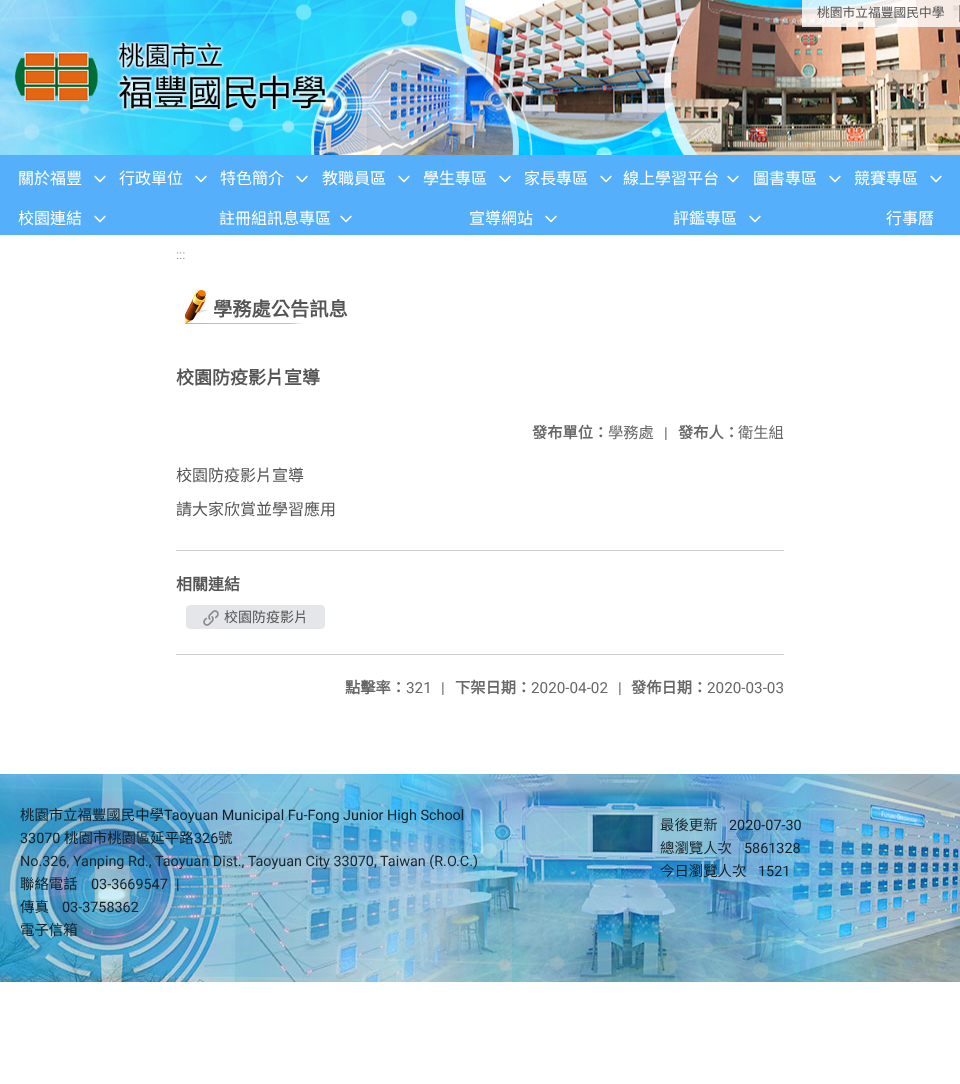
<!DOCTYPE html>
<meta charset="utf-8">
<style>body { margin: 0 } canvas { display: block }</style>
<canvas id="canvas" width="960" height="1084"></canvas>
<script type="module">
  const canvas = document.getElementById("canvas");
  const g = canvas.getContext("2d");
  g.miterLimit = 4;
  g.fontKerning = "normal";
  function drawText(s, x, y, [font, color]) {
    g.font = font;
    g.fillStyle = color;
    g.fillText(s, x, y);
  }
  function fillBox(x, y, w, h, color) {
    g.fillStyle = color;
    g.fillRect(x, y, w, h);
  }
  async function drawPicture(src, x, y, w, h) {
    const img = new Image();
    img.src = src;
    await img.decode();
    g.drawImage(img, x, y, w, h);
  }

  const s1 = ["12.75px Noto Sans CJK TC", "#545454"];
  const s2 = ["16px Noto Sans CJK TC", "#FFFFFF"];
  const s3 = ["12.75px Roboto", "#9E9E9E"];
  const s4 = ["bold 19.25px Noto Sans CJK TC", "#545454"];
  const s5 = ["bold 18px Noto Sans CJK TC", "#545454"];
  const s6 = ["bold 15.25px Noto Sans CJK TC", "#656769"];
  const s7 = ["15.25px Noto Sans CJK TC", "#656769"];
  const s8 = ["15.25px Roboto", "#656769"];
  const s9 = ["16px Noto Sans CJK TC", "#545454"];
  const s10 = ["bold 16px Noto Sans CJK TC", "#545454"];
  const s11 = ["14px Noto Sans CJK TC", "#545454"];
  const s12 = ["14.4px Noto Sans CJK TC", "#102028"];
  const s13 = ["14.4px Roboto", "#102028"];
  const s14 = ["14.4px Noto Sans CJK TC", "#1C252B"];
  const s15 = ["14.4px Roboto", "#1C252B"];
  const s16 = ["14.4px Roboto", "#162229"];

  fillBox(0, 0, 960, 1084, "#FFFFFF");
  await drawPicture("pic1.png", 0, 0, 960, 155);
  await drawPicture("pic2.png", 15, 42, 313, 70);
  fillBox(802, 0, 158, 27, "rgba(255, 255, 255, 0.8)");
  drawText("桃園市立福豐國民中學", 817, 17, s1);
  fillBox(959, 5, 1, 17, "rgba(51, 51, 51, 0.5)");
  fillBox(0, 155, 960, 80, "#56AFFB");
  drawText("關於福豐", 18, 184, s2);
  await drawPicture("pic3.png", 94, 175, 12, 8);
  drawText("行政單位", 119, 184, s2);
  await drawPicture("pic3.png", 195, 175, 12, 8);
  drawText("特色簡介", 220, 184, s2);
  await drawPicture("pic3.png", 296, 175, 12, 8);
  drawText("教職員區", 322, 184, s2);
  await drawPicture("pic3.png", 398, 175, 12, 8);
  drawText("學生專區", 423, 184, s2);
  await drawPicture("pic3.png", 499, 175, 12, 8);
  drawText("家長專區", 524, 184, s2);
  await drawPicture("pic3.png", 600, 175, 12, 8);
  drawText("線上學習平台", 623, 184, s2);
  await drawPicture("pic3.png", 727, 175, 12, 8);
  drawText("圖書專區", 753, 184, s2);
  await drawPicture("pic3.png", 829, 175, 12, 8);
  drawText("競賽專區", 854, 184, s2);
  await drawPicture("pic3.png", 930, 175, 12, 8);
  drawText("校園連結", 18, 224, s2);
  await drawPicture("pic3.png", 94, 215, 12, 8);
  drawText("註冊組訊息專區", 219, 224, s2);
  await drawPicture("pic3.png", 340, 215, 12, 8);
  drawText("宣導網站", 469, 224, s2);
  await drawPicture("pic3.png", 545, 215, 12, 8);
  drawText("評鑑專區", 673, 224, s2);
  await drawPicture("pic3.png", 749, 215, 12, 8);
  drawText("行事曆", 886, 224, s2);
  drawText(":::", 176, 259, s3);
  await drawPicture("pic4.png", 185, 290, 118, 34);
  drawText("學務處公告訊息", 213, 316, s4);
  drawText("校園防疫影片宣導", 176, 384, s5);
  drawText("發布單位：", 532, 438, s6);
  drawText("學務處", 608, 438, s7);
  drawText("|", 664, 438, s8);
  drawText("發布人：", 678, 438, s6);
  drawText("衛生組", 738, 438, s7);
  drawText("校園防疫影片宣導", 176, 481, s9);
  drawText("請大家欣賞並學習應用", 176, 515, s9);
  fillBox(176, 550, 608, 1, "#CCCCCC");
  drawText("相關連結", 176, 590, s10);
  g.fillStyle = "#E5E6E9";
  g.beginPath();
  g.roundRect(186.5, 605.5, 138, 23, 3.5);
  g.fill();
  g.strokeStyle = "#E5E6E9";
  g.stroke();
  await drawPicture("pic5.png", 203, 610, 16, 16);
  drawText("校園防疫影片", 224, 622, s11);
  fillBox(176, 654, 608, 1, "#CCCCCC");
  drawText("點擊率：", 345, 693, s6);
  drawText("321", 406, 693, s8);
  drawText("|", 441, 693, s8);
  drawText("下架日期：", 455, 693, s6);
  drawText("2020-04-02", 531, 693, s8);
  drawText("|", 618, 693, s8);
  drawText("發佈日期：", 631, 693, s6);
  drawText("2020-03-03", 707, 693, s8);
  await drawPicture("pic6.png", 0, 774, 960, 208);
  drawText("桃園市立福豐國民中學", 20, 820, s12);
  drawText("Taoyuan Municipal Fu-Fong Junior High School", 164, 820, s13);
  drawText("33070", 20, 843, s13);
  drawText("桃園市桃園區延平路", 64, 843, s12);
  drawText("326", 194, 843, s13);
  drawText("號", 218, 843, s14);
  drawText("No.326, Yanping Rd., Taoyuan Dist., Taoyuan City 33070, Taiwan (R.O.C.)", 20, 866, s15);
  drawText("聯絡電話", 20, 889, s12);
  drawText("03-3669547", 91, 889, s16);
  drawText("|", 176, 889, s13);
  drawText("傳真", 20, 912, s12);
  drawText("03-3758362", 62, 912, s13);
  drawText("電子信箱", 20, 935, s12);
  drawText("最後更新", 660, 830, s14);
  drawText("2020-07-30", 729, 830, s16);
  drawText("總瀏覽人次", 660, 853, s14);
  drawText("5861328", 744, 853, s13);
  drawText("今日瀏覽人次", 660, 876, s12);
  drawText("1521", 758, 876, s13);
</script>
